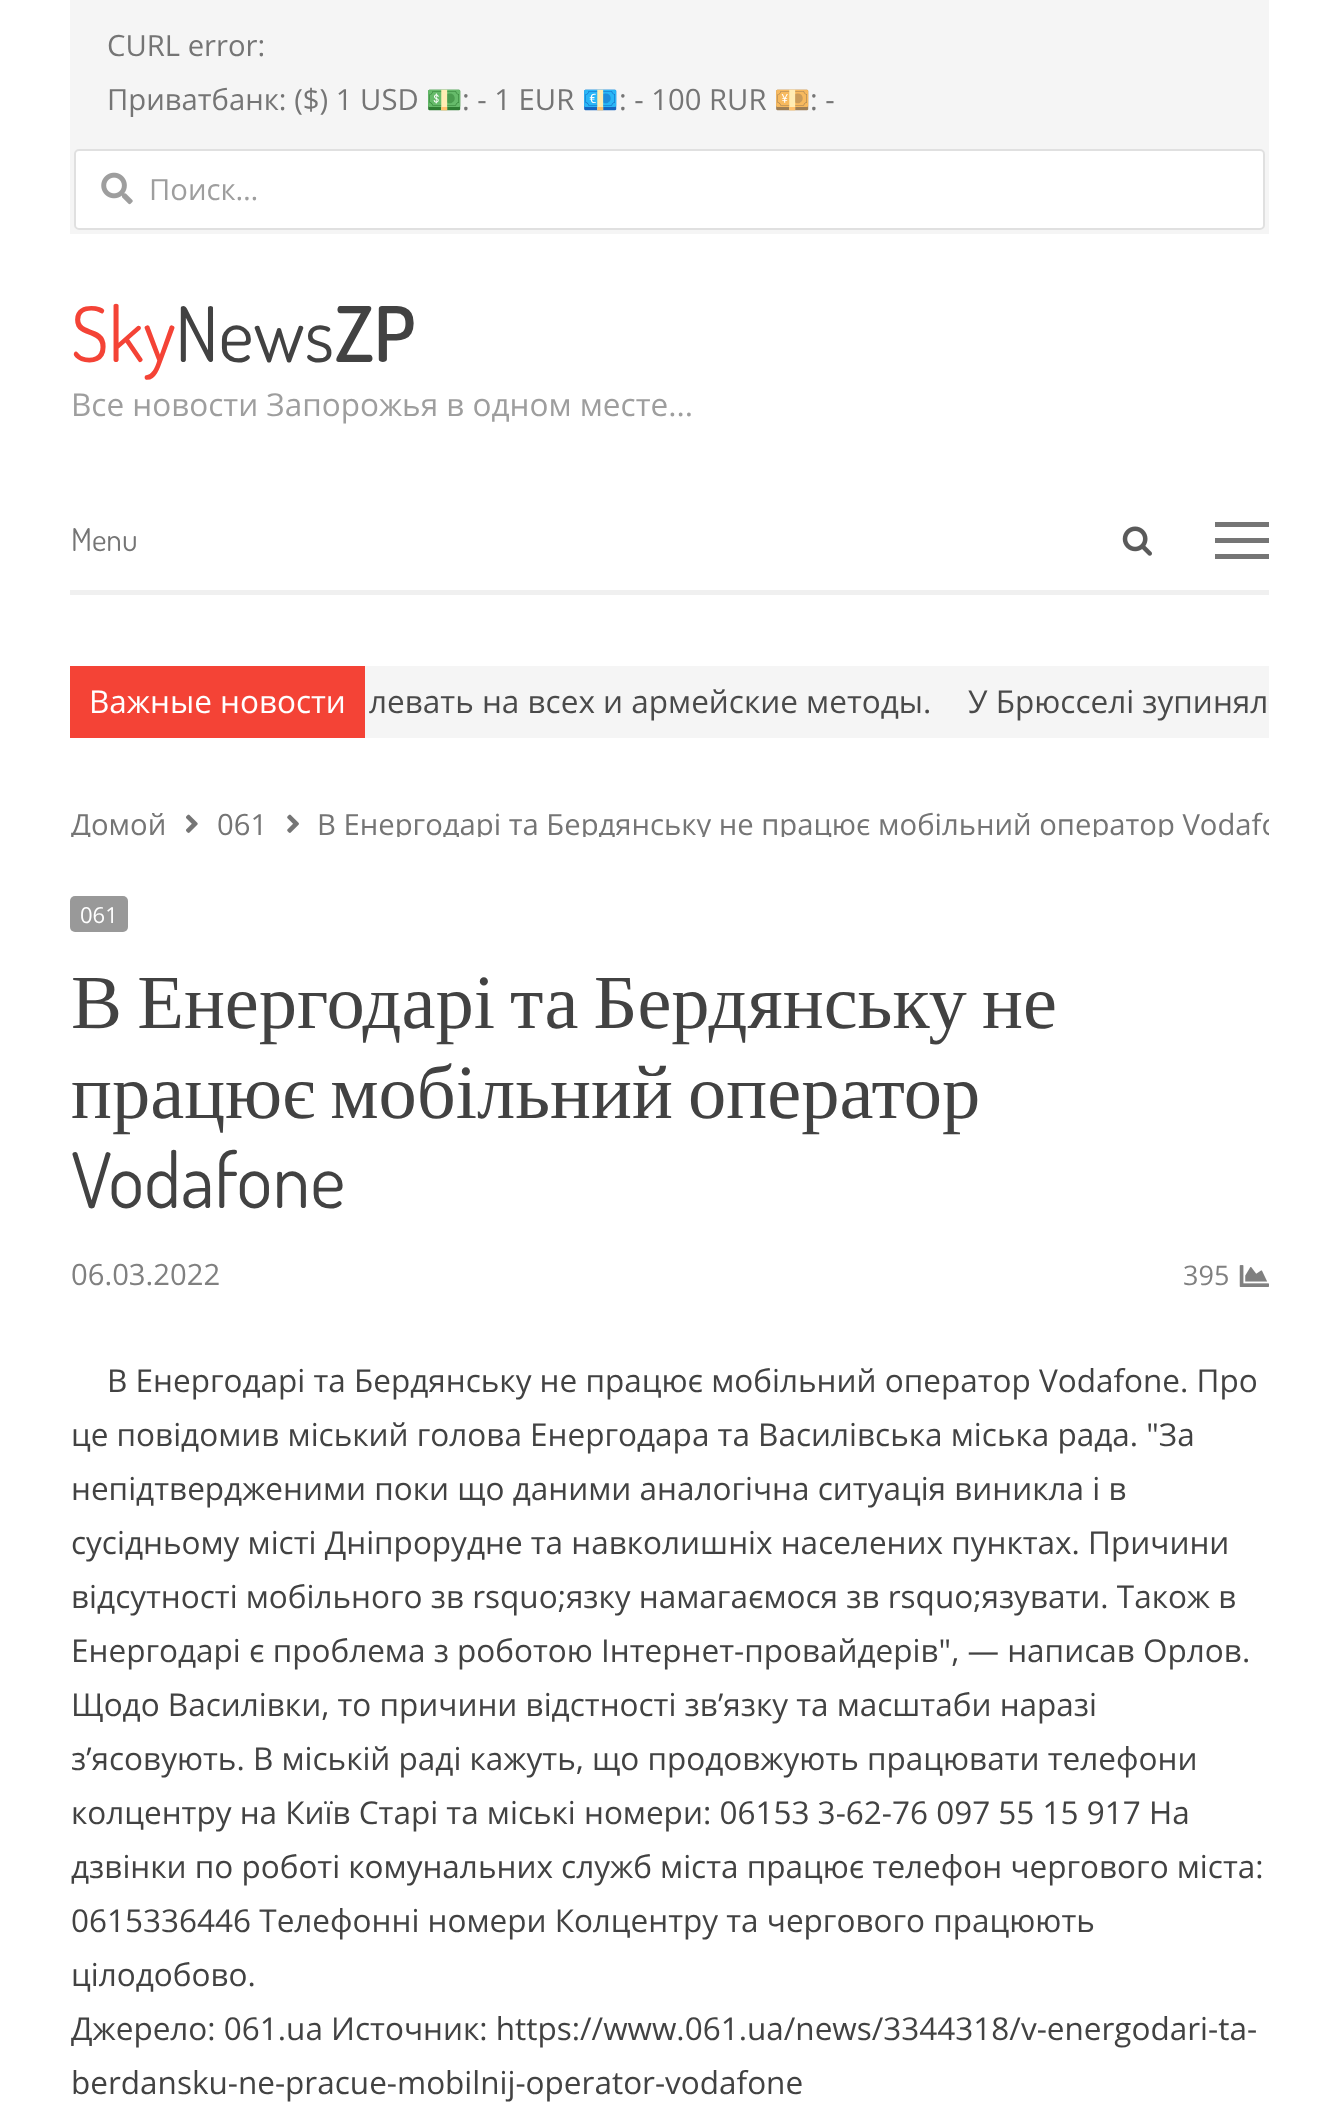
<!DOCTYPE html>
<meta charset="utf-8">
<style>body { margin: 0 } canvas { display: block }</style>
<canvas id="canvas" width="1338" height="2124"></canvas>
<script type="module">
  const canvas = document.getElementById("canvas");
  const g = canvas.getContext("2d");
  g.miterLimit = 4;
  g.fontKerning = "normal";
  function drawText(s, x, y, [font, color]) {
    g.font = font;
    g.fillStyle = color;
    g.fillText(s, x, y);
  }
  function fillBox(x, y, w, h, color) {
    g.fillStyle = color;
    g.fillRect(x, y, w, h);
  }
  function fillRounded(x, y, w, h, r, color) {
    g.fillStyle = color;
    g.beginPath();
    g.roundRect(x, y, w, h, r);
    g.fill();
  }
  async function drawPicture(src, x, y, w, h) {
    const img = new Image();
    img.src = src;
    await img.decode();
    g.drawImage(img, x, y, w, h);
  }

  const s1 = ["29.25px Open Sans", "#757575"];
  const s2 = ["29.25px Noto Color Emoji", "#757575"];
  const s3 = ["29.25px Open Sans", "#9E9E9E"];
  const s4 = ["76.5px Dosis", "#F44336"];
  const s5 = ["76.5px Dosis", "#424242"];
  const s6 = ["600 76.5px Dosis", "#424242"];
  const s7 = ["31.5px Open Sans", "#9E9E9E"];
  const s8 = ["31.5px Dosis", "#757575"];
  const s9 = ["31.5px Open Sans", "#FFFFFF"];
  const s10 = ["31.5px Open Sans", "#4A4A4A"];
  const s11 = ["22px Open Sans", "#FFFFFF"];
  const s12 = ["76.5px Liberation Serif", "#424242"];
  const s13 = ["29.25px Open Sans", "#808080"];
  const s14 = ["27px Open Sans", "#808080"];
  const s15 = ["31.5px Open Sans", "#424242"];

  fillBox(0, 0, 1338, 2124, "#FFFFFF");
  fillBox(70, 0, 1199, 234, "#F5F5F5");
  drawText("CURL error:", 107, 56, s1);
  drawText("Приватбанк: ($) 1 USD", 107, 110, s1);
  drawText("💵", 426, 110, s2);
  drawText(": - 1 EUR", 462, 110, s1);
  drawText("💶", 582, 110, s2);
  drawText(": - 100 RUR", 619, 110, s1);
  drawText("💴", 774, 110, s2);
  drawText(": -", 810, 110, s1);
  fillRounded(74, 149, 1191, 81, 5, "#FFFFFF");
  g.beginPath();
  g.roundRect(75, 150, 1189, 79, 4);
  g.strokeStyle = "rgba(0, 0, 0, 0.12)";
  g.lineWidth = 2;
  g.stroke();
  await drawPicture("pic1.png", 101, 172, 32, 33);
  drawText("Поиск…", 149, 200, s3);
  drawText("Sky", 71, 362, s4);
  drawText("News", 175, 362, s5);
  drawText("ZP", 335, 362, s6);
  drawText("Все новости Запорожья в одном месте...", 71, 416, s7);
  fillBox(70, 590, 1199, 5, "#F0F0F0");
  drawText("Menu", 71, 551, s8);
  fillBox(1215, 522, 54, 5, "#757575");
  fillBox(1215, 538, 54, 5, "#757575");
  fillBox(1215, 554, 54, 5, "#757575");
  await drawPicture("pic2.png", 1122, 526, 30, 30);
  fillBox(70, 666, 295, 72, "#F44336");
  drawText("Важные новости", 89, 713, s9);
  fillBox(365, 666, 904, 72, "#F5F5F5");
  drawText("левать на всех и армейские методы.", 369, 713, s10);
  drawText("У Брюсселі зупинял", 968, 713, s10);
  g.save();
  g.beginPath();
  g.rect(70, 792, 1199, 45);
  g.clip();
  drawText("Домой", 71, 835, s1);
  g.restore();
  await drawPicture("pic3.png", 186, 814, 12, 19);
  drawText("061", 217, 835, s1);
  await drawPicture("pic4.png", 287, 814, 12, 19);
  g.save();
  g.beginPath();
  g.rect(70, 792, 1199, 45);
  g.clip();
  drawText("В Енергодарі та Бердянську не працює мобільний оператор Vodafo", 317, 835, s1);
  g.restore();
  fillRounded(70, 896, 58, 36, 5, "#999999");
  drawText("061", 80, 923, s11);
  g.wordSpacing = "-4px";
  drawText("В Енергодарі та Бердянську не", 71, 1028, s12);
  drawText("працює мобільний оператор", 71, 1118, s12);
  g.wordSpacing = "0px";
  drawText("Vodafone", 71, 1208, s5);
  drawText("06.03.2022", 71, 1285, s13);
  drawText("395", 1183, 1285, s14);
  await drawPicture("pic5.png", 1239, 1265, 30, 22);
  drawText("В Енергодарі та Бердянську не працює мобільний оператор Vodafone. Про", 107, 1392, s15);
  drawText("це повідомив міський голова Енергодара та Василівська міська рада. \"За", 71, 1446, s15);
  drawText("непідтвердженими поки що даними аналогічна ситуація виникла і в", 71, 1500, s15);
  drawText("сусідньому місті Дніпрорудне та навколишніх населених пунктах. Причини", 71, 1554, s15);
  drawText("відсутності мобільного зв rsquo;язку намагаємося зв rsquo;язувати. Також в", 71, 1608, s15);
  drawText("Енергодарі є проблема з роботою Інтернет-провайдерів\", — написав Орлов.", 71, 1662, s15);
  drawText("Щодо Василівки, то причини відстності зв’язку та масштаби наразі", 71, 1716, s15);
  drawText("з’ясовують. В міській раді кажуть, що продовжують працювати телефони", 71, 1770, s15);
  drawText("колцентру на Київ Старі та міські номери: 06153 3-62-76 097 55 15 917 На", 71, 1824, s15);
  drawText("дзвінки по роботі комунальних служб міста працює телефон чергового міста:", 71, 1878, s15);
  drawText("0615336446 Телефонні номери Колцентру та чергового працюють", 71, 1932, s15);
  drawText("цілодобово.", 71, 1986, s15);
  drawText("Джерело: 061.ua Источник: https://www.061.ua/news/3344318/v-energodari-ta-", 71, 2040, s15);
  drawText("berdansku-ne-pracue-mobilnij-operator-vodafone", 71, 2094, s15);
</script>
